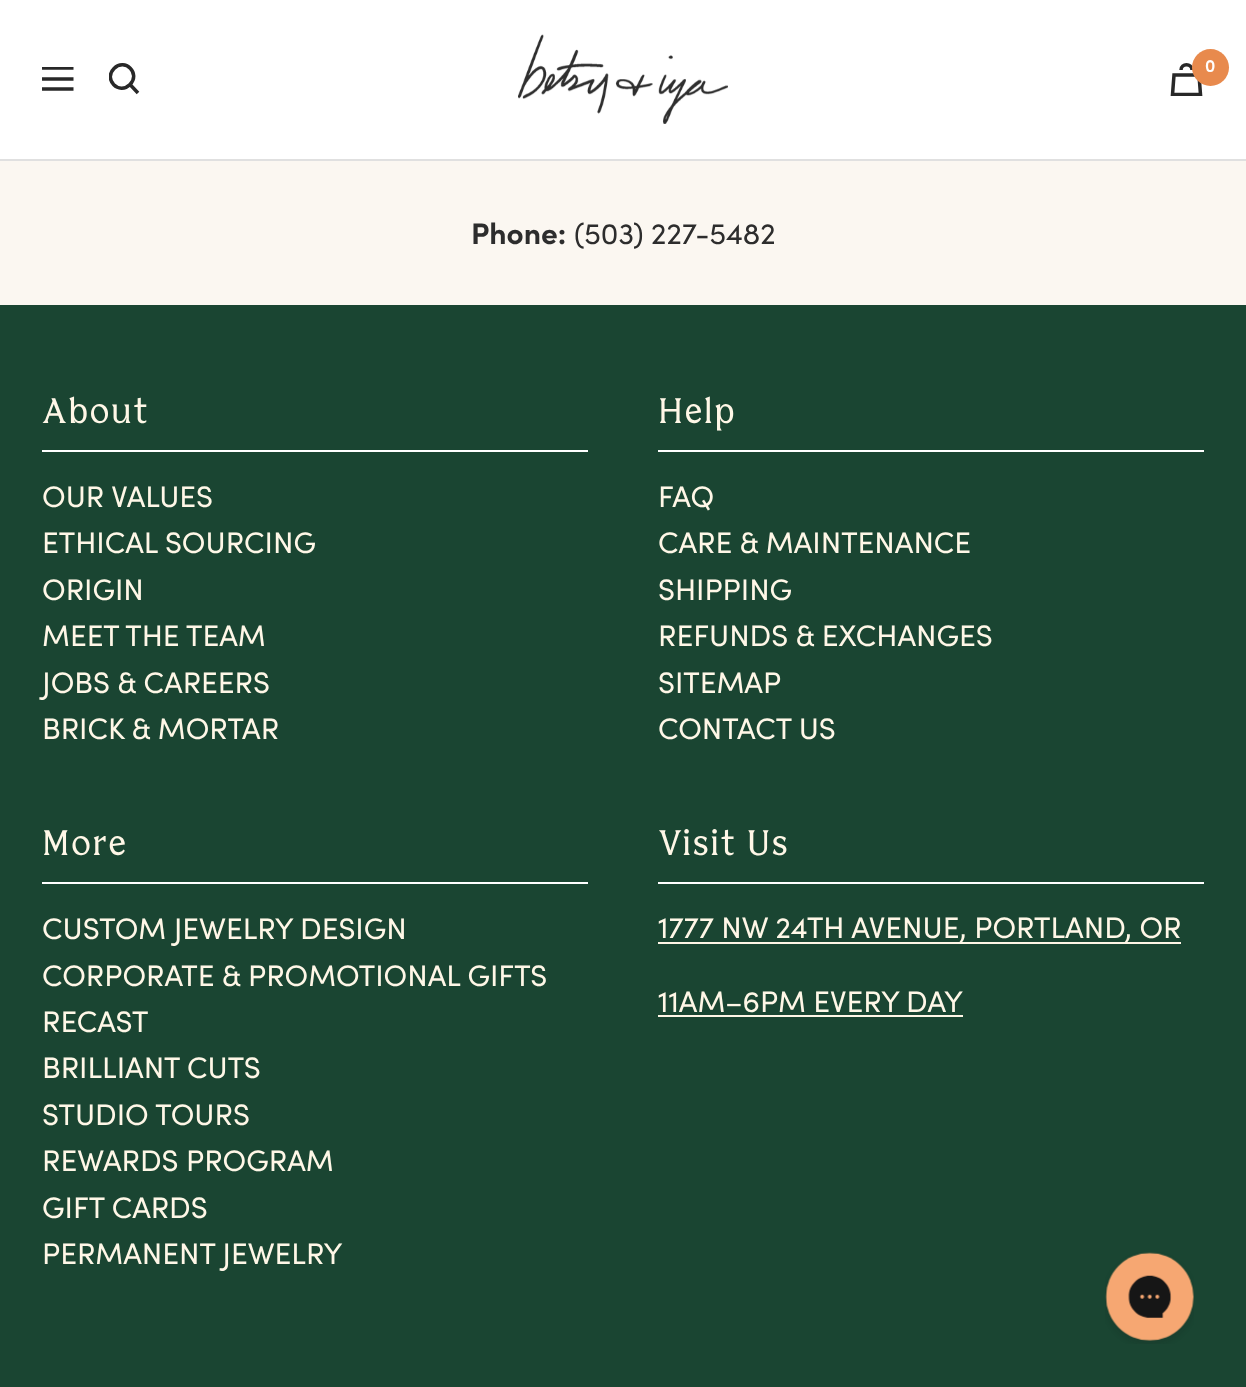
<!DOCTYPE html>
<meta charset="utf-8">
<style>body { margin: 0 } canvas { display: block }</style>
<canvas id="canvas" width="1246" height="1387"></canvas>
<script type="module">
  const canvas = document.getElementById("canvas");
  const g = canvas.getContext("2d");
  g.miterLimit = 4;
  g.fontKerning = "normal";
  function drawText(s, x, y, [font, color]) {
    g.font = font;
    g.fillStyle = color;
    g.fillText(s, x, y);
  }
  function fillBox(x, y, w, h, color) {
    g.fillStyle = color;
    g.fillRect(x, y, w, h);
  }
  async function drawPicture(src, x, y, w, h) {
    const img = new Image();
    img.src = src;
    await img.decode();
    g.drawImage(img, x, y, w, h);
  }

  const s1 = ["600 16px Poppins", "#FFFFFF"];
  const s2 = ["bold 29.75px Sofia", "#2D2D2D"];
  const s3 = ["29.75px Sofia", "#2D2D2D"];
  const s4 = ["35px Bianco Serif", "#FFF7E7"];
  const s5 = ["29.75px Sofia", "#FFF7E7"];

  fillBox(0, 0, 1246, 1387, "#FBF7F1");
  fillBox(0, 159, 1246, 2, "#E0E0E0");
  fillBox(0, 0, 1246, 159, "#FFFFFF");
  g.save();
  g.beginPath();
  g.rect(42, 67, 32, 24);
  g.clip();
  g.beginPath();
  g.moveTo(42, 68);
  g.lineTo(73.5, 68);
  g.moveTo(42, 89);
  g.lineTo(73.5, 89);
  g.closePath();
  g.moveTo(42, 79);
  g.lineTo(73.5, 79);
  g.closePath();
  g.strokeStyle = "#282828";
  g.lineWidth = 3.5;
  g.stroke();
  g.restore();
  g.save();
  g.beginPath();
  g.rect(109, 63, 31, 32);
  g.clip();
  g.beginPath();
  g.moveTo(130, 84.5);
  g.bezierCurveTo(141, 73.5, 125, 57.5, 114, 68.5);
  g.bezierCurveTo(103, 79.5, 119, 95.5, 130, 84.5);
  g.closePath();
  g.moveTo(130, 84.5);
  g.lineTo(138, 93);
  g.strokeStyle = "#282828";
  g.lineWidth = 3.5;
  g.stroke();
  g.restore();
  await drawPicture("pic1.png", 518, 34, 210, 90);
  g.save();
  g.beginPath();
  g.rect(1169, 63, 35, 33);
  g.clip();
  g.beginPath();
  g.moveTo(1174, 75);
  g.lineTo(1199, 75);
  g.lineTo(1200.5, 94.5);
  g.lineTo(1172.5, 94.5);
  g.closePath();
  g.strokeStyle = "#282828";
  g.lineWidth = 3.5;
  g.stroke();
  g.restore();
  g.beginPath();
  g.moveTo(1192, 70);
  g.bezierCurveTo(1192, 63, 1181, 63, 1181, 70);
  g.strokeStyle = "#282828";
  g.lineWidth = 3.5;
  g.stroke();
  g.fillStyle = "#E88A4D";
  g.beginPath();
  g.arc(1210.5, 67.5, 18.5, 0, Math.PI * 2);
  g.fill();
  drawText("0", 1205, 72, s1);
  drawText("Phone:", 471, 244, s2);
  drawText("(503) 227-5482", 574, 244, s3);
  fillBox(0, 305, 1246, 1082, "#1A4532");
  fillBox(42, 450, 546, 2, "#FFFFFF");
  g.letterSpacing = "1.75px";
  drawText("About", 42, 423, s4);
  g.letterSpacing = "0px";
  drawText("OUR VALUES", 42, 507, s5);
  drawText("ETHICAL SOURCING", 42, 553, s5);
  drawText("ORIGIN", 42, 600, s5);
  drawText("MEET THE TEAM", 42, 646, s5);
  drawText("JOBS & CAREERS", 42, 693, s5);
  drawText("BRICK & MORTAR", 42, 739, s5);
  fillBox(658, 450, 546, 2, "#FFFFFF");
  g.letterSpacing = "1.75px";
  drawText("Help", 658, 423, s4);
  g.letterSpacing = "0px";
  drawText("FAQ", 658, 507, s5);
  drawText("CARE & MAINTENANCE", 658, 553, s5);
  drawText("SHIPPING", 658, 600, s5);
  drawText("REFUNDS & EXCHANGES", 658, 646, s5);
  drawText("SITEMAP", 658, 693, s5);
  drawText("CONTACT US", 658, 739, s5);
  fillBox(42, 882, 546, 2, "#FFFFFF");
  g.letterSpacing = "1.75px";
  drawText("More", 42, 855, s4);
  g.letterSpacing = "0px";
  drawText("CUSTOM JEWELRY DESIGN", 42, 939, s5);
  drawText("CORPORATE & PROMOTIONAL GIFTS", 42, 986, s5);
  drawText("RECAST", 42, 1032, s5);
  drawText("BRILLIANT CUTS", 42, 1078, s5);
  drawText("STUDIO TOURS", 42, 1125, s5);
  drawText("REWARDS PROGRAM", 42, 1171, s5);
  drawText("GIFT CARDS", 42, 1218, s5);
  drawText("PERMANENT JEWELRY", 42, 1264, s5);
  fillBox(658, 882, 546, 2, "#FFFFFF");
  g.letterSpacing = "1.75px";
  drawText("Visit Us", 658, 855, s4);
  fillBox(658, 942, 523, 2, "#FFF7E7");
  g.letterSpacing = "0px";
  drawText("1777 NW 24TH AVENUE, PORTLAND, OR", 658, 938, s5);
  drawText("11AM–6PM EVERY DAY", 658, 1012, s5);
  fillBox(658, 1015, 305, 2, "#FFF7E7");
  await drawPicture("pic2.png", 1105, 1252, 89, 92);
</script>
